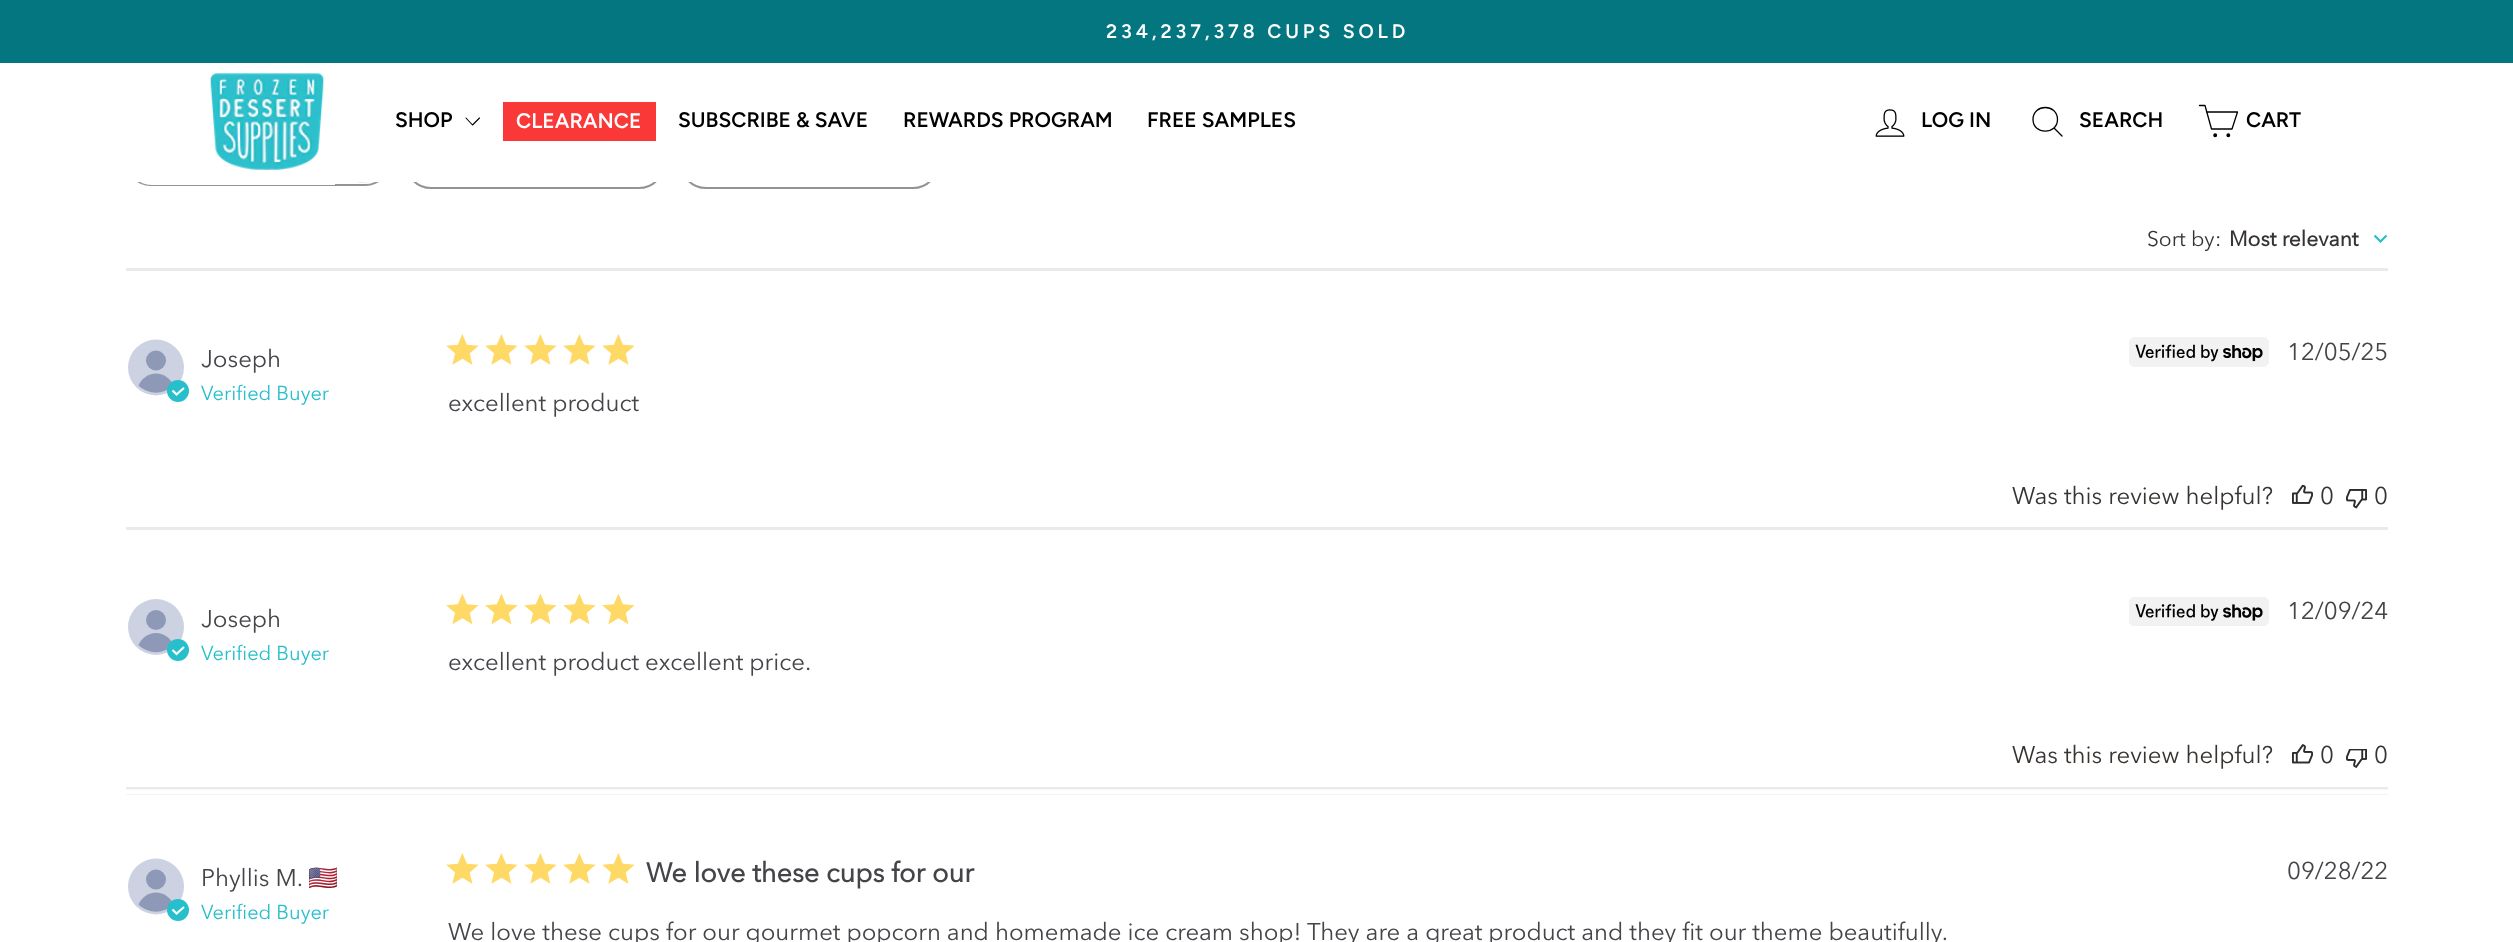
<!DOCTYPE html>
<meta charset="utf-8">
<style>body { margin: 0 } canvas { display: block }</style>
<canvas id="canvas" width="2513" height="942"></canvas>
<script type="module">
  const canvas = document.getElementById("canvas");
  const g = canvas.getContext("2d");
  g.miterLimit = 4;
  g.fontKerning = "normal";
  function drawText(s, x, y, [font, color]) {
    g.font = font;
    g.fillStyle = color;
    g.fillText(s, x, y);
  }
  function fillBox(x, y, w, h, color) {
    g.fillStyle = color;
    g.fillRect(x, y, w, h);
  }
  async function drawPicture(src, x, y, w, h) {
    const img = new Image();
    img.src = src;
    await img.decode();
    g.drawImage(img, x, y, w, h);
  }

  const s1 = ["600 19.5px Figtree", "#FFFFFF"];
  const s2 = ["600 21px Figtree", "#000000"];
  const s3 = ["600 21px Figtree", "#FFFFFF"];
  const s4 = ["21px Avenir Next", "#373330"];
  const s5 = ["bold 21px Avenir Next", "#373330"];
  const s6 = ["24px Avenir Next", "#454449"];
  const s7 = ["20px Avenir Next", "#26BFCB"];
  const s8 = ["24px Avenir Next", "#373330"];
  const s9 = ["24px Noto Color Emoji", "#454449"];
  const s10 = ["bold 27px Avenir Next", "#454449"];

  fillBox(0, 0, 2513, 942, "#FFFFFF");
  fillBox(0, 0, 2513, 63, "#047680");
  g.letterSpacing = "3.9px";
  drawText("234,237,378 CUPS SOLD", 1106, 38, s1);
  g.beginPath();
  g.roundRect(127, 138, 262, 47, 23.5);
  g.strokeStyle = "#949494";
  g.lineWidth = 2;
  g.stroke();
  g.beginPath();
  g.roundRect(128, 138, 207, 47, [23.5, 0, 0, 23.5]);
  g.fill();
  g.fillStyle = "#EAEAEA";
  g.beginPath();
  g.arc(362.5, 161.5, 21.5, 0, Math.PI * 2);
  g.fill();
  g.beginPath();
  g.roundRect(406, 138, 258, 50, 25);
  g.stroke();
  g.beginPath();
  g.roundRect(681, 138, 257, 50, 25);
  g.stroke();
  fillBox(126, 137, 813, 45, "#FFFFFF");
  await drawPicture("pic1.png", 210, 73, 114, 98);
  g.letterSpacing = "0px";
  drawText("SHOP", 395, 127, s2);
  g.beginPath();
  g.moveTo(466, 118);
  g.lineTo(472.5, 125);
  g.lineTo(479.5, 118);
  g.strokeStyle = "#000000";
  g.lineWidth = 1.1;
  g.lineCap = "round";
  g.lineJoin = "round";
  g.stroke();
  fillBox(503, 102, 153, 39, "#FA3838");
  drawText("CLEARANCE", 516, 128, s3);
  drawText("SUBSCRIBE & SAVE", 678, 127, s2);
  drawText("REWARDS PROGRAM", 903, 127, s2);
  drawText("FREE SAMPLES", 1147, 127, s2);
  await drawPicture("pic2.png", 1875, 109, 30, 28);
  drawText("LOG IN", 1921, 127, s2);
  g.beginPath();
  g.moveTo(2057.5, 119.5);
  g.bezierCurveTo(2057.5, 135, 2033, 135, 2033, 119.5);
  g.bezierCurveTo(2033, 103.5, 2057.5, 103.5, 2057.5, 119.5);
  g.closePath();
  g.moveTo(2062, 136);
  g.lineTo(2054, 128);
  g.lineWidth = 1.3;
  g.stroke();
  drawText("SEARCH", 2079, 127, s2);
  g.beginPath();
  g.moveTo(2206.5, 112);
  g.lineTo(2237.5, 112);
  g.lineTo(2232, 129);
  g.lineTo(2211.5, 129);
  g.lineTo(2205, 105.5);
  g.lineTo(2199.5, 105.5);
  g.stroke();
  g.beginPath();
  g.arc(2215.2, 135.3, 1.3, 0, Math.PI * 2);
  g.fill();
  g.stroke();
  g.beginPath();
  g.arc(2228.3, 135.3, 1.3, 0, Math.PI * 2);
  g.fill();
  g.stroke();
  drawText("CART", 2246, 127, s2);
  drawText("Sort by", 2147, 246, s4);
  drawText(":", 2215, 246, s4);
  drawText("Most relevant", 2229, 246, s5);
  g.beginPath();
  g.moveTo(2374.5, 235.5);
  g.lineTo(2380.5, 241.5);
  g.lineTo(2386.5, 235.5);
  g.strokeStyle = "#26BFCB";
  g.lineWidth = 2.2;
  g.lineCap = "butt";
  g.lineJoin = "miter";
  g.stroke();
  fillBox(126, 268, 2262, 3, "#EAEAEA");
  g.fillStyle = "#CCD2E1";
  g.beginPath();
  g.arc(156, 367.5, 28, 0, Math.PI * 2);
  g.fill();
  g.fillStyle = "#8D99B6";
  g.beginPath();
  g.arc(156, 360.5, 10, 0, Math.PI * 2);
  g.fill();
  g.beginPath();
  g.moveTo(156, 373.5);
  g.bezierCurveTo(164, 373.5, 170.5, 378.5, 173.5, 385.5);
  g.bezierCurveTo(164, 395, 148, 395, 138.5, 385.5);
  g.bezierCurveTo(141.5, 378.5, 148, 373.5, 156, 373.5);
  g.closePath();
  g.fill();
  g.fillStyle = "#26BFCB";
  g.beginPath();
  g.arc(178, 391, 11, 0, Math.PI * 2);
  g.fill();
  g.beginPath();
  g.moveTo(172.5, 390.5);
  g.lineTo(176.5, 394.5);
  g.lineTo(184, 388);
  g.strokeStyle = "#FFFFFF";
  g.stroke();
  drawText("Joseph", 201, 367, s6);
  drawText("Verified Buyer", 201, 400, s7);
  await drawPicture("pic3.png", 446, 334, 33, 31);
  await drawPicture("pic3.png", 485, 334, 33, 31);
  await drawPicture("pic3.png", 524, 334, 33, 31);
  await drawPicture("pic3.png", 563, 334, 33, 31);
  await drawPicture("pic3.png", 602, 334, 33, 31);
  drawText("excellent product", 448, 411, s6);
  await drawPicture("pic4.png", 2129, 337, 140, 30);
  drawText("12/05/25", 2287, 360, s6);
  drawText("Was this review helpful?", 2012, 504, s8);
  await drawPicture("pic5.png", 2292, 485, 21, 19);
  drawText("0", 2320, 504, s8);
  await drawPicture("pic6.png", 2346, 489, 21, 20);
  drawText("0", 2374, 504, s8);
  fillBox(126, 527, 2262, 3, "#EAEAEA");
  g.fillStyle = "#CCD2E1";
  g.beginPath();
  g.arc(156, 627, 28, 0, Math.PI * 2);
  g.fill();
  g.fillStyle = "#8D99B6";
  g.beginPath();
  g.arc(156, 620, 10, 0, Math.PI * 2);
  g.fill();
  g.beginPath();
  g.moveTo(156, 633);
  g.bezierCurveTo(164, 633, 170.5, 638, 173.5, 645);
  g.bezierCurveTo(164, 654.5, 148, 654.5, 138.5, 645);
  g.bezierCurveTo(141.5, 638, 148, 633, 156, 633);
  g.closePath();
  g.fill();
  g.fillStyle = "#26BFCB";
  g.beginPath();
  g.arc(178, 650, 11, 0, Math.PI * 2);
  g.fill();
  g.beginPath();
  g.moveTo(172.5, 650);
  g.lineTo(176.5, 654);
  g.lineTo(184, 647);
  g.stroke();
  drawText("Joseph", 201, 627, s6);
  drawText("Verified Buyer", 201, 660, s7);
  await drawPicture("pic7.png", 446, 593, 33, 32);
  await drawPicture("pic7.png", 485, 593, 33, 32);
  await drawPicture("pic7.png", 524, 593, 33, 32);
  await drawPicture("pic7.png", 563, 593, 33, 32);
  await drawPicture("pic7.png", 602, 593, 33, 32);
  drawText("excellent product excellent price.", 448, 670, s6);
  await drawPicture("pic8.png", 2129, 597, 140, 29);
  drawText("12/09/24", 2287, 619, s6);
  drawText("Was this review helpful?", 2012, 763, s8);
  await drawPicture("pic9.png", 2292, 744, 21, 20);
  drawText("0", 2320, 763, s8);
  await drawPicture("pic10.png", 2346, 749, 21, 19);
  drawText("0", 2374, 763, s8);
  await drawPicture("pic11.png", 126, 787, 2262, 8);
  g.fillStyle = "#CCD2E1";
  g.beginPath();
  g.arc(156, 886.5, 28, 0, Math.PI * 2);
  g.fill();
  g.fillStyle = "#8D99B6";
  g.beginPath();
  g.arc(156, 879.5, 10, 0, Math.PI * 2);
  g.fill();
  g.beginPath();
  g.moveTo(156, 892.5);
  g.bezierCurveTo(164, 892.5, 170.5, 897.5, 173.5, 904.5);
  g.bezierCurveTo(164, 914, 148, 914, 138.5, 904.5);
  g.bezierCurveTo(141.5, 897.5, 148, 892.5, 156, 892.5);
  g.closePath();
  g.fill();
  g.fillStyle = "#26BFCB";
  g.beginPath();
  g.arc(178, 910, 11, 0, Math.PI * 2);
  g.fill();
  g.beginPath();
  g.moveTo(172.5, 909.5);
  g.lineTo(176.5, 913.5);
  g.lineTo(184, 907);
  g.stroke();
  drawText("Phyllis M.", 201, 886, s6);
  drawText("🇺🇸", 308, 886, s9);
  drawText("Verified Buyer", 201, 919, s7);
  await drawPicture("pic3.png", 446, 853, 33, 31);
  await drawPicture("pic3.png", 485, 853, 33, 31);
  await drawPicture("pic3.png", 524, 853, 33, 31);
  await drawPicture("pic3.png", 563, 853, 33, 31);
  await drawPicture("pic3.png", 602, 853, 33, 31);
  drawText("We love these cups for our", 646, 882, s10);
  drawText("We love these cups for our gourmet popcorn and homemade ice cream shop! They are a great product and they fit our theme beautifully.", 448, 940, s6);
  drawText("09/28/22", 2287, 879, s6);
</script>
